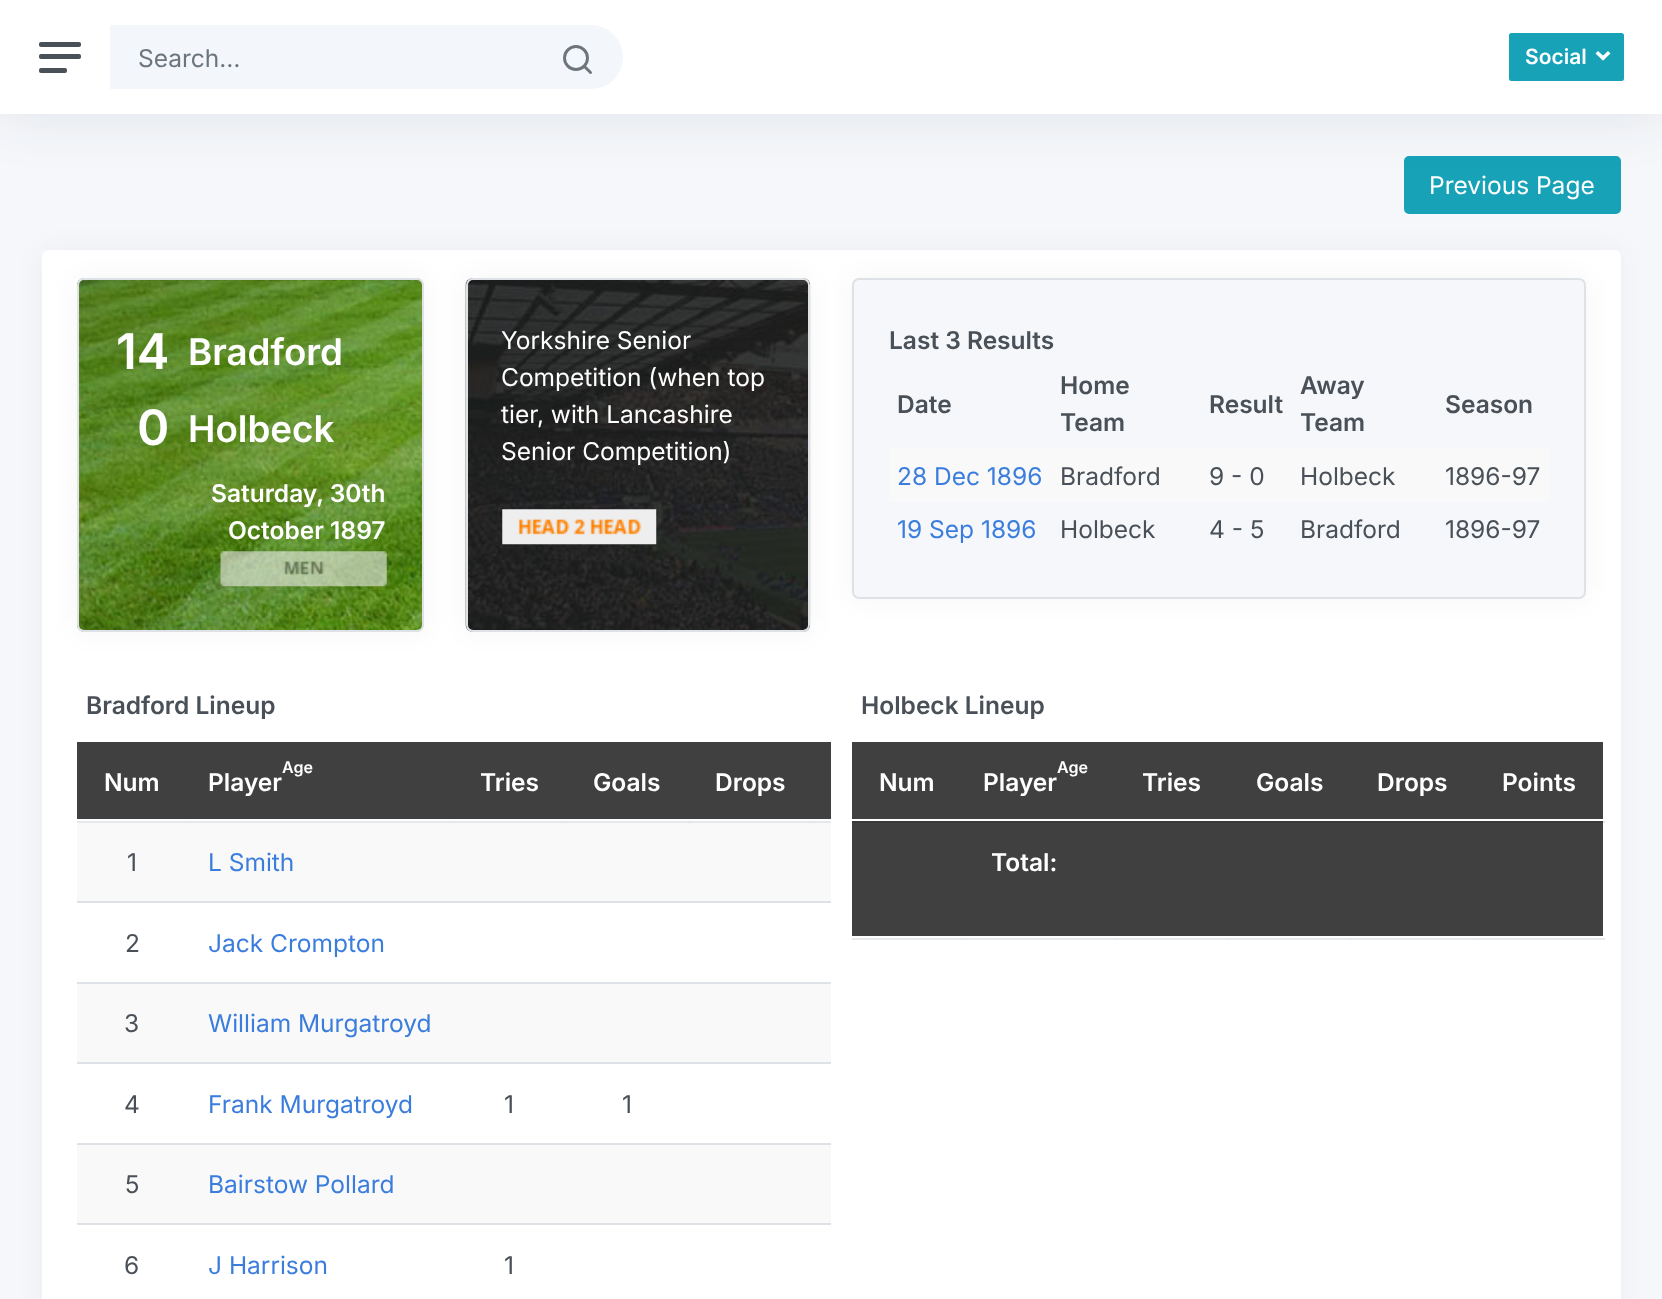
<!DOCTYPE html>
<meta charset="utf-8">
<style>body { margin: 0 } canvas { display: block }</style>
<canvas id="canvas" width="1662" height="1299"></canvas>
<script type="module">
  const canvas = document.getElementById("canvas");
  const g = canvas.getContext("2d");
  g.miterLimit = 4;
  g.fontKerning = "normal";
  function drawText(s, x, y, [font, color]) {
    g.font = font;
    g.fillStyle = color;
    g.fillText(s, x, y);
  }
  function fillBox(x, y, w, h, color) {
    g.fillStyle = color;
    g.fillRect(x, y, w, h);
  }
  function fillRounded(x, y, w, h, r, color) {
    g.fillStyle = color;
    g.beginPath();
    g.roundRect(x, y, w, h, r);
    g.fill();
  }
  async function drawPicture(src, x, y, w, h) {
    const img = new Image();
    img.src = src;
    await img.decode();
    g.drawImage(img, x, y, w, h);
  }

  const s1 = ["24.5px Inter", "#6C757D"];
  const s2 = ["600 21px Inter", "#FFFFFF"];
  const s3 = ["24.5px Inter", "#FFFFFF"];
  const s4 = ["600 49px Inter", "#FFFFFF"];
  const s5 = ["600 36.75px Inter", "#FFFFFF"];
  const s6 = ["600 24.5px Inter", "#FFFFFF"];
  const s7 = ["600 24.5px Inter", "#495057"];
  const s8 = ["24.5px Inter", "#3B7DDD"];
  const s9 = ["24.5px Inter", "#495057"];
  const s10 = ["600 16px Inter", "#FFFFFF"];

  fillBox(0, 0, 1662, 1299, "#F5F7FB");
  g.fillStyle = "#17A2B8";
  g.beginPath();
  g.roundRect(1405, 157, 215, 56, 4);
  g.fill();
  g.strokeStyle = "#17A2B8";
  g.lineWidth = 2;
  g.stroke();
  g.fillStyle = "rgba(33, 37, 41, 0.1)";
  g.filter = "blur(28px)";
  g.beginPath();
  g.rect(0, 0, 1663, 114);
  g.fill();
  g.filter = "none";
  fillBox(0, 0, 1662, 114, "#FFFFFF");
  fillRounded(39, 54, 42, 5, 2, "#495057");
  fillRounded(39, 42, 42, 5, 2, "#495057");
  fillRounded(39, 68, 28, 5, 2, "#495057");
  fillBox(110, 25, 422, 64, "#F3F6FA");
  drawText("Search…", 138, 67, s1);
  g.fillStyle = "#F3F6FA";
  g.beginPath();
  g.roundRect(532, 25, 91, 64, [0, 32, 32, 0]);
  g.fill();
  g.beginPath();
  g.arc(576, 58, 11.5, 0, Math.PI * 2);
  g.strokeStyle = "#6C757D";
  g.lineWidth = 2.9;
  g.stroke();
  g.beginPath();
  g.moveTo(590.5, 72.5);
  g.lineTo(584.5, 66.5);
  g.lineCap = "round";
  g.lineJoin = "round";
  g.stroke();
  g.fillStyle = "#17A2B8";
  g.beginPath();
  g.roundRect(1510, 34, 113, 46, 1.5);
  g.fill();
  g.strokeStyle = "#17A2B8";
  g.lineWidth = 2;
  g.lineJoin = "miter";
  g.stroke();
  drawText("Social", 1525, 64, s2);
  g.beginPath();
  g.moveTo(1608, 51);
  g.lineTo(1610.5, 53.5);
  g.lineTo(1603, 60.5);
  g.lineTo(1600.5, 58);
  g.closePath();
  g.fill();
  g.beginPath();
  g.moveTo(1598, 51);
  g.lineTo(1605.5, 58);
  g.lineTo(1603, 60.5);
  g.lineTo(1595.5, 53.5);
  g.closePath();
  g.fill();
  drawText("Previous Page", 1429, 194, s3);
  g.fillStyle = "rgba(33, 37, 41, 0.05)";
  g.filter = "blur(12px)";
  g.beginPath();
  g.roundRect(42, 250, 1579, 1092, 7);
  g.fill();
  g.filter = "none";
  g.fillStyle = "#FFFFFF";
  g.beginPath();
  g.moveTo(49, 250);
  g.lineTo(1614, 250);
  g.bezierCurveTo(1618, 250, 1621, 253, 1621, 257);
  g.lineTo(1621, 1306);
  g.lineTo(42, 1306);
  g.lineTo(42, 257);
  g.bezierCurveTo(42, 253, 45, 250, 49, 250);
  g.closePath();
  g.fill();
  fillBox(852, 823, 751, 113, "#404040");
  fillBox(852, 821, 751, 2, "#3A3A3B");
  fillBox(852, 938, 753, 2, "#E6E9EC");
  fillBox(961, 938, 2, 2, "#E0E4E8");
  fillBox(1115, 938, 2, 2, "#E0E4E8");
  fillBox(1227, 938, 2, 2, "#E0E4E8");
  fillBox(1349, 938, 2, 2, "#E0E4E8");
  g.fillStyle = "rgba(33, 37, 41, 0.05)";
  g.filter = "blur(12px)";
  g.beginPath();
  g.roundRect(77, 278, 347, 354, 7);
  g.fill();
  g.filter = "none";
  await drawPicture("pic1.png", 77, 278, 347, 354);
  g.beginPath();
  g.roundRect(78, 279, 345, 352, 6);
  g.strokeStyle = "#DEE2E6";
  g.stroke();
  drawText("14", 116, 369, s4);
  drawText("Bradford", 188, 365, s5);
  drawText("0", 137, 445, s4);
  drawText("Holbeck", 188, 442, s5);
  drawText("Saturday, 30th", 211, 502, s6);
  drawText("October 1897", 228, 539, s6);
  await drawPicture("pic2.png", 220, 551, 167, 36);
  g.fillStyle = "rgba(33, 37, 41, 0.05)";
  g.filter = "blur(12px)";
  g.beginPath();
  g.roundRect(466, 278, 344, 354, 7);
  g.fill();
  g.filter = "none";
  await drawPicture("pic3.png", 465, 278, 346, 354);
  g.beginPath();
  g.roundRect(467, 279, 342, 352, 6);
  g.stroke();
  drawText("Yorkshire Senior", 501, 349, s3);
  drawText("Competition (when top", 501, 386, s3);
  drawText("tier, with Lancashire", 501, 423, s3);
  drawText("Senior Competition)", 501, 460, s3);
  await drawPicture("pic4.png", 502, 509, 155, 36);
  g.fillStyle = "rgba(33, 37, 41, 0.05)";
  g.filter = "blur(12px)";
  g.beginPath();
  g.roundRect(852, 278, 734, 321, 7);
  g.fill();
  g.filter = "none";
  g.fillStyle = "#F5F7FB";
  g.beginPath();
  g.roundRect(853, 279, 732, 319, 6);
  g.fill();
  g.stroke();
  drawText("Last 3 Results", 889, 349, s7);
  drawText("Date", 897, 413, s7);
  drawText("Home", 1060, 394, s7);
  drawText("Team", 1060, 431, s7);
  drawText("Result", 1209, 413, s7);
  drawText("Away", 1300, 394, s7);
  drawText("Team", 1300, 431, s7);
  drawText("Season", 1445, 413, s7);
  fillBox(889, 448, 660, 54, "#F9F9F9");
  drawText("28 Dec 1896", 897, 485, s8);
  drawText("Bradford", 1060, 485, s9);
  drawText("9 - 0", 1209, 485, s9);
  drawText("Holbeck", 1300, 485, s9);
  drawText("1896-97", 1445, 485, s9);
  drawText("19 Sep 1896", 897, 538, s8);
  drawText("Holbeck", 1060, 538, s9);
  drawText("4 - 5", 1209, 538, s9);
  drawText("Bradford", 1300, 538, s9);
  drawText("1896-97", 1445, 538, s9);
  drawText("Bradford Lineup", 86, 714, s7);
  fillBox(77, 742, 754, 77, "#404040");
  drawText("Num", 104, 791, s6);
  drawText("Age", 282, 773, s10);
  drawText("Player", 208, 791, s6);
  drawText("Tries", 480, 791, s6);
  drawText("Goals", 593, 791, s6);
  drawText("Drops", 715, 791, s6);
  fillBox(77, 821, 754, 2, "#E5E8EB");
  fillBox(812, 821, 2, 2, "#E0E4E7");
  fillBox(77, 823, 754, 78, "#F9F9F9");
  fillBox(186, 821, 1, 2, "#E0E4E7");
  fillBox(452, 821, 1, 2, "#E0E4E7");
  fillBox(565, 821, 2, 2, "#E0E4E7");
  fillBox(688, 821, 2, 2, "#E0E4E7");
  drawText("1", 127, 871, s9);
  drawText("L Smith", 208, 871, s8);
  fillBox(77, 901, 754, 2, "#DEE2E6");
  drawText("2", 125, 952, s9);
  drawText("Jack Crompton", 208, 952, s8);
  fillBox(77, 982, 754, 2, "#DEE2E6");
  fillBox(77, 984, 754, 78, "#F9F9F9");
  drawText("3", 124, 1032, s9);
  drawText("William Murgatroyd", 208, 1032, s8);
  fillBox(77, 1062, 754, 2, "#DEE2E6");
  drawText("4", 124, 1113, s9);
  drawText("Frank Murgatroyd", 208, 1113, s8);
  drawText("1", 504, 1113, s9);
  drawText("1", 622, 1113, s9);
  fillBox(77, 1143, 754, 2, "#DEE2E6");
  fillBox(77, 1145, 754, 78, "#F9F9F9");
  drawText("5", 125, 1193, s9);
  drawText("Bairstow Pollard", 208, 1193, s8);
  fillBox(77, 1223, 754, 2, "#DEE2E6");
  drawText("6", 124, 1274, s9);
  drawText("J Harrison", 208, 1274, s8);
  drawText("1", 504, 1274, s9);
  drawText("Holbeck Lineup", 861, 714, s7);
  fillBox(852, 742, 751, 77, "#404040");
  drawText("Num", 879, 791, s6);
  drawText("Age", 1057, 773, s10);
  drawText("Player", 983, 791, s6);
  drawText("Tries", 1142, 791, s6);
  drawText("Goals", 1256, 791, s6);
  drawText("Drops", 1377, 791, s6);
  fillBox(1603, 821, 2, 2, "#E6E9EC");
  drawText("Points", 1502, 791, s6);
  drawText("Total:", 991, 871, s6);
  fillBox(1474, 938, 1, 2, "#E0E4E8");
</script>
